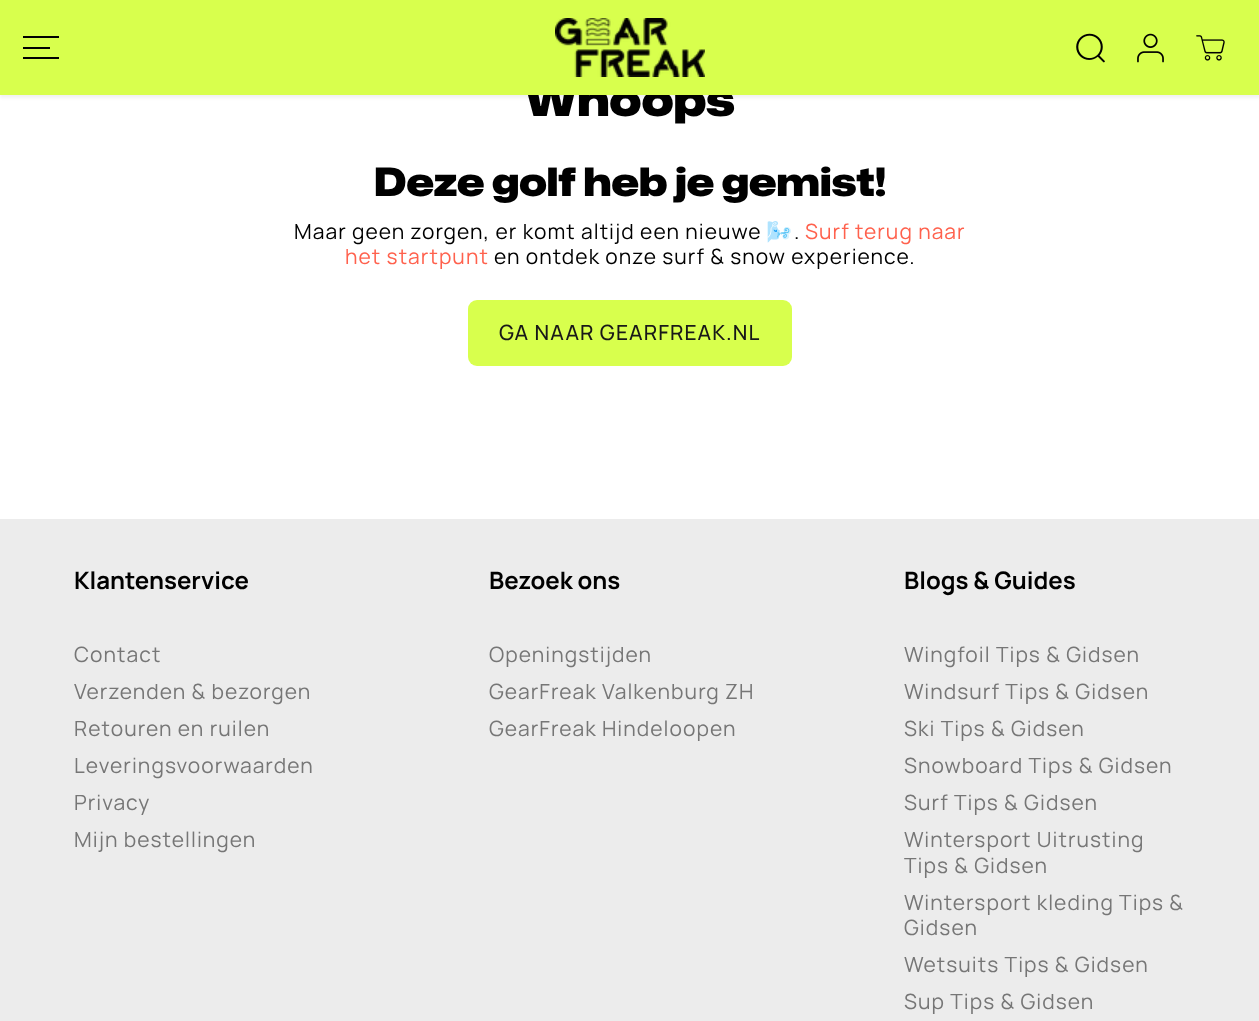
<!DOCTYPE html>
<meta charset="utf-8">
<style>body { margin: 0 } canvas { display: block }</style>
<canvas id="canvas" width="1259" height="1021"></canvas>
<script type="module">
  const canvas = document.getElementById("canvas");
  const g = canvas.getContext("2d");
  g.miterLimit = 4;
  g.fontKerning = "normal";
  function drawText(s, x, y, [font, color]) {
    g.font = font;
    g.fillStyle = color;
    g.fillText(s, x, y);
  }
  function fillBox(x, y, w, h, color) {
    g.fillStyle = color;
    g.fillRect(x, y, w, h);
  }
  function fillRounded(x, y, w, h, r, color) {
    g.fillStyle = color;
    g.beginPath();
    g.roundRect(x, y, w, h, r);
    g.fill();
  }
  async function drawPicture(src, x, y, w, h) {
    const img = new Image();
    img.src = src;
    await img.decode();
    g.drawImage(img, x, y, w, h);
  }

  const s1 = ["900 45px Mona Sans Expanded", "#000000"];
  const s2 = ["900 39px Mona Sans Expanded", "#000000"];
  const s3 = ["21px Manrope", "#000000"];
  const s4 = ["21px Noto Color Emoji", "#000000"];
  const s5 = ["21px Manrope", "#FF614D"];
  const s6 = ["500 21px Manrope", "#181818"];
  const s7 = ["bold 24px Manrope", "#000000"];
  const s8 = ["21px Manrope", "#767676"];

  fillBox(0, 0, 1259, 1021, "#ECECEC");
  fillBox(0, 95, 1259, 424, "#FFFFFF");
  drawText("Whoops", 525, 116, s1);
  fillBox(0, 0, 1259, 95, "#D8FF4D");
  g.save();
  g.beginPath();
  g.moveTo(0, 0);
  g.lineTo(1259, 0);
  g.lineTo(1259, 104);
  g.lineTo(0, 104);
  g.closePath();
  g.moveTo(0, 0);
  g.lineTo(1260, 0);
  g.lineTo(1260, 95);
  g.lineTo(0, 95);
  g.closePath();
  g.clip("evenodd");
  g.fillStyle = "rgba(0, 0, 0, 0.05)";
  g.filter = "blur(1.5px)";
  g.beginPath();
  g.rect(0, 3, 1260, 95);
  g.fill();
  g.filter = "none";
  g.restore();
  fillBox(23, 47, 27, 2, "#000000");
  fillBox(23, 36, 36, 2, "#000000");
  fillBox(23, 57, 36, 2, "#000000");
  await drawPicture("pic1.png", 555, 18, 150, 59);
  await drawPicture("pic2.png", 1076, 33, 29, 30);
  await drawPicture("pic3.png", 1137, 33, 27, 30);
  await drawPicture("pic4.png", 1196, 35, 29, 26);
  drawText("Deze golf heb je gemist!", 374, 196, s2);
  g.letterSpacing = "1.05px";
  drawText("Maar geen zorgen, er komt altijd een nieuwe", 294, 239, s3);
  drawText("🌬️", 766, 239, s4);
  drawText(".", 794, 239, s3);
  drawText("Surf terug naar", 805, 239, s5);
  drawText("het startpunt", 345, 264, s5);
  drawText("en ontdek onze surf & snow experience.", 494, 264, s3);
  fillRounded(468, 300, 324, 66, 9, "#D8FF4D");
  drawText("GA NAAR GEARFREAK.NL", 499, 340, s6);
  g.letterSpacing = "0px";
  drawText("Klantenservice", 74, 589, s7);
  g.letterSpacing = "1.05px";
  drawText("Contact", 74, 662, s8);
  drawText("Verzenden & bezorgen", 74, 699, s8);
  drawText("Retouren en ruilen", 74, 736, s8);
  drawText("Leveringsvoorwaarden", 74, 773, s8);
  drawText("Privacy", 74, 810, s8);
  drawText("Mijn bestellingen", 74, 847, s8);
  g.letterSpacing = "0px";
  drawText("Bezoek ons", 489, 589, s7);
  g.letterSpacing = "1.05px";
  drawText("Openingstijden", 489, 662, s8);
  drawText("GearFreak Valkenburg ZH", 489, 699, s8);
  drawText("GearFreak Hindeloopen", 489, 736, s8);
  g.letterSpacing = "0px";
  drawText("Blogs & Guides", 904, 589, s7);
  g.letterSpacing = "1.05px";
  drawText("Wingfoil Tips & Gidsen", 904, 662, s8);
  drawText("Windsurf Tips & Gidsen", 904, 699, s8);
  drawText("Ski Tips & Gidsen", 904, 736, s8);
  drawText("Snowboard Tips & Gidsen", 904, 773, s8);
  drawText("Surf Tips & Gidsen", 904, 810, s8);
  drawText("Wintersport Uitrusting", 904, 847, s8);
  drawText("Tips & Gidsen", 904, 873, s8);
  drawText("Wintersport kleding Tips &", 904, 910, s8);
  drawText("Gidsen", 904, 935, s8);
  drawText("Wetsuits Tips & Gidsen", 904, 972, s8);
  drawText("Sup Tips & Gidsen", 904, 1009, s8);
</script>
